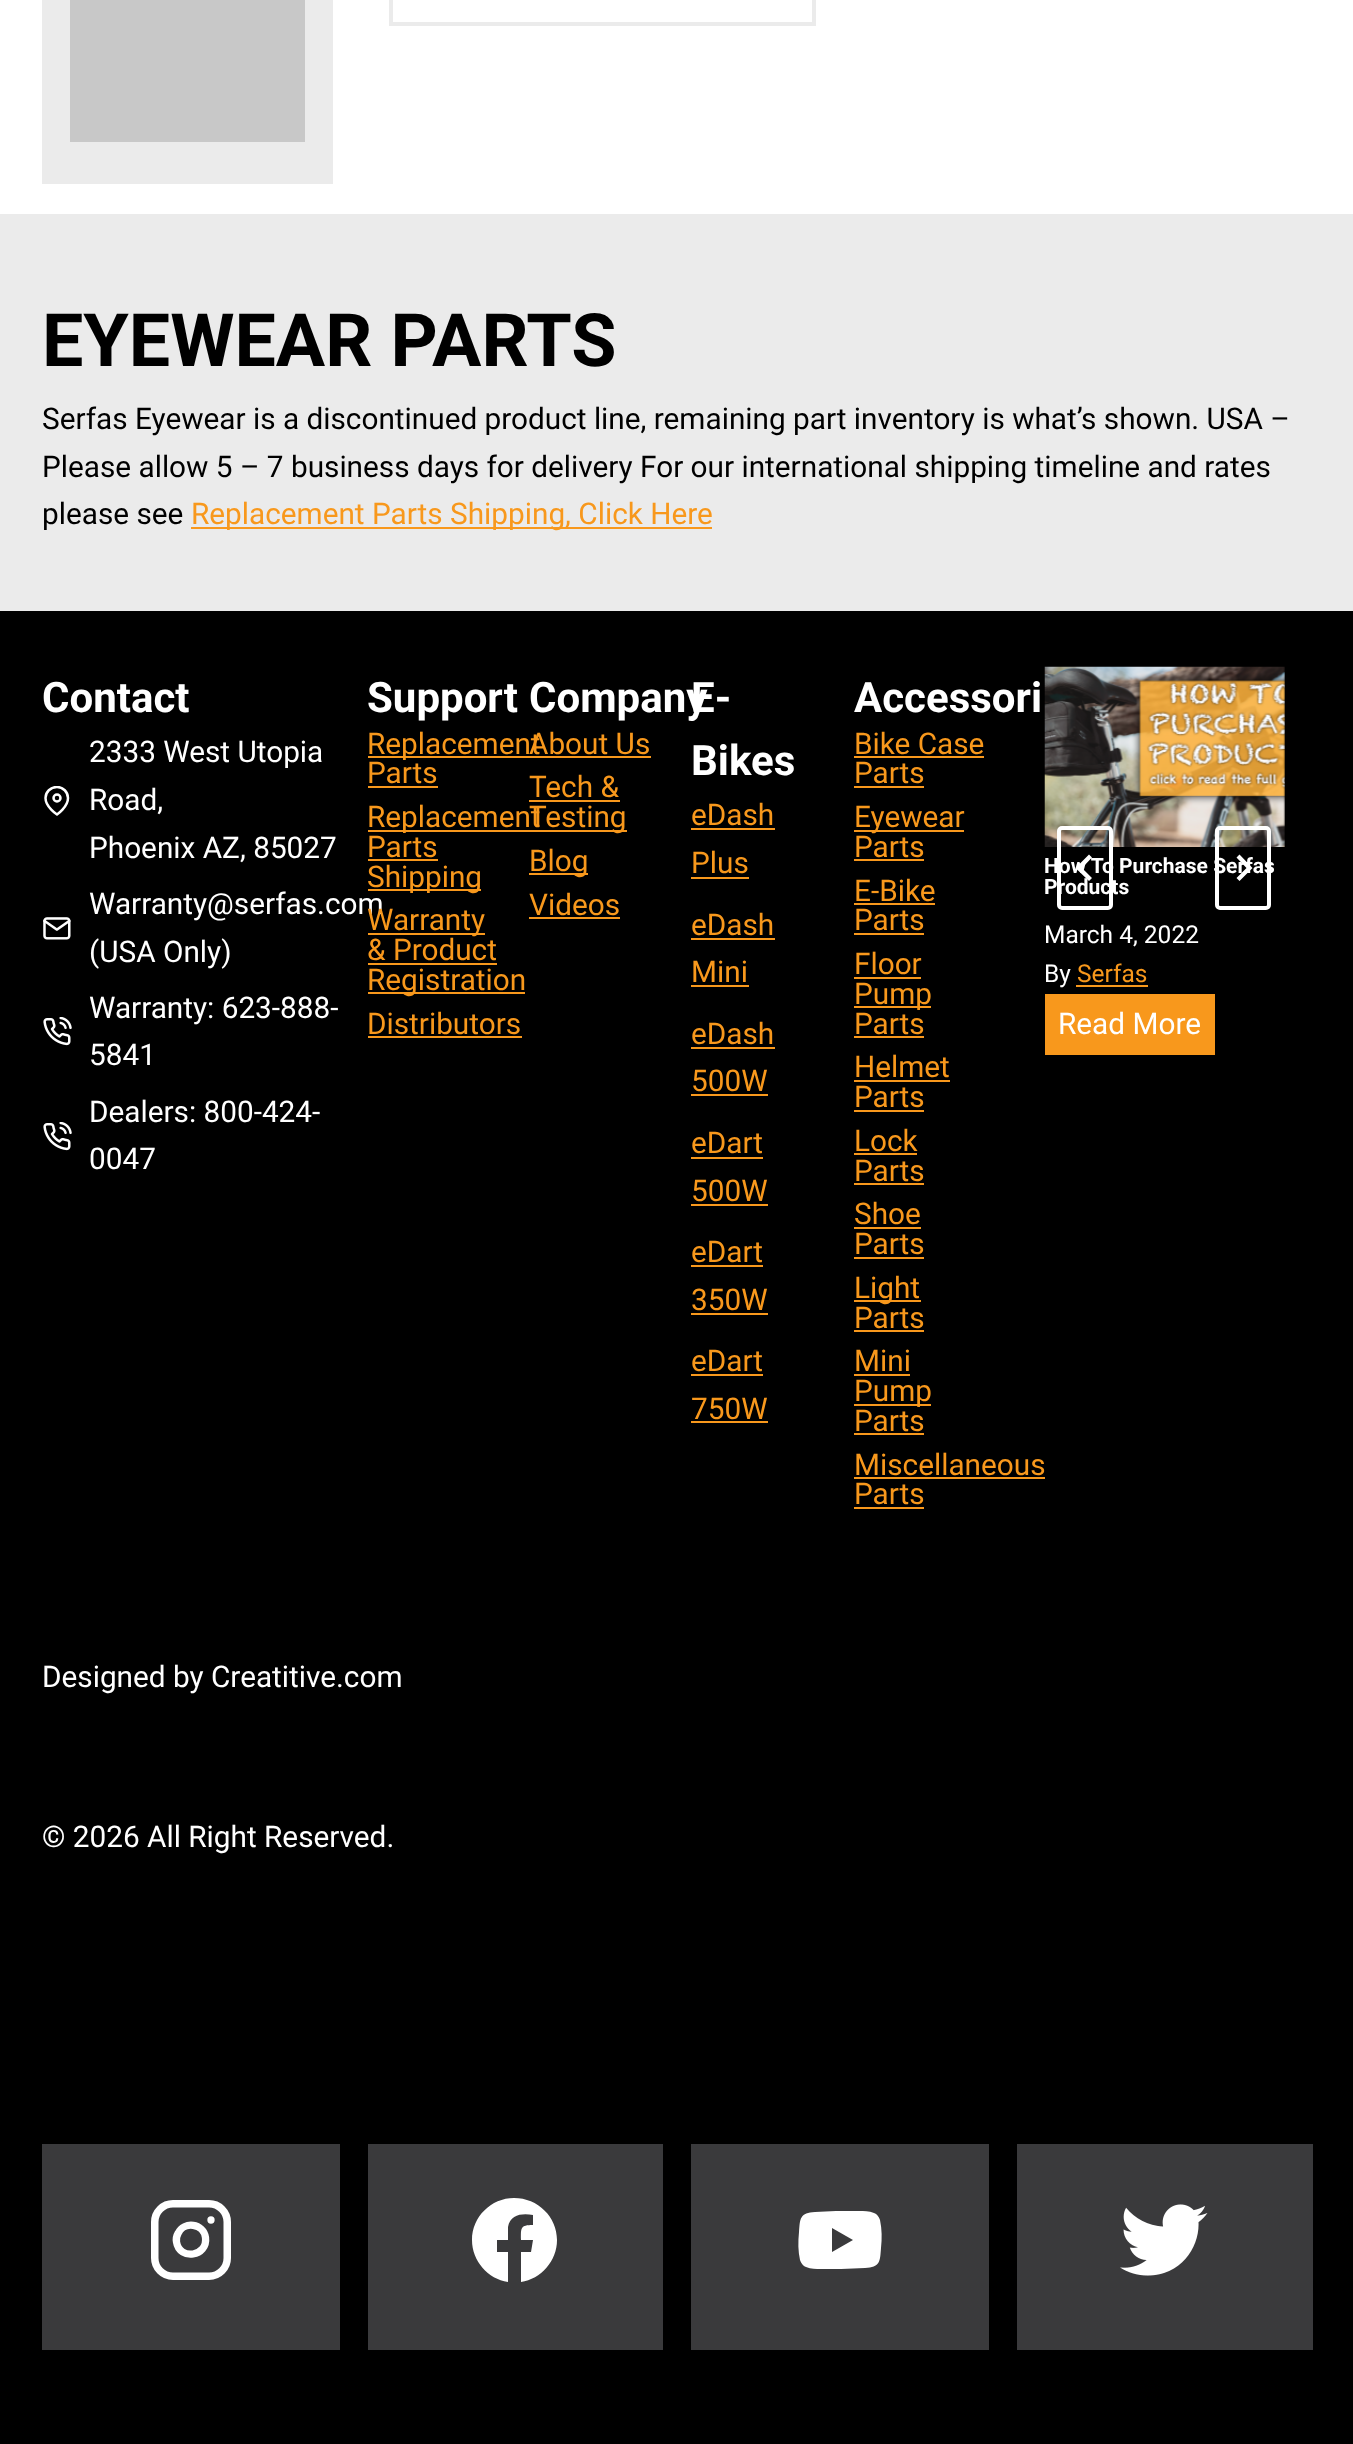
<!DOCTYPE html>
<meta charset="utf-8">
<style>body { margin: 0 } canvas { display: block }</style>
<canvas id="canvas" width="1353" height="2444"></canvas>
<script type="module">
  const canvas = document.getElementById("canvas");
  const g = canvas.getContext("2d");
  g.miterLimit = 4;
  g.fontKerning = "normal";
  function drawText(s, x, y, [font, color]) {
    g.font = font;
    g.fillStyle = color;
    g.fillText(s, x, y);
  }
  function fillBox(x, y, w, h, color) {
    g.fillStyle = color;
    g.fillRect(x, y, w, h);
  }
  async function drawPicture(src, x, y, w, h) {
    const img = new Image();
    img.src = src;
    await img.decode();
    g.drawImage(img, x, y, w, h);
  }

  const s1 = ["bold 73.5px Roboto", "#000000"];
  const s2 = ["29.75px Roboto", "#000000"];
  const s3 = ["29.75px Roboto", "#F8981C"];
  const s4 = ["bold 42px Roboto", "#FFFFFF"];
  const s5 = ["29.75px Roboto", "#FFFFFF"];
  const s6 = ["bold 21px Roboto", "#FFFFFF"];
  const s7 = ["24.5px Roboto", "#FFFFFF"];
  const s8 = ["24.5px Roboto", "#F8981C"];

  fillBox(0, 0, 1353, 2444, "#FFFFFF");
  fillBox(42, 0, 291, 184, "#EBEBEB");
  fillBox(70, 0, 235, 142, "#C8C8C8");
  g.strokeStyle = "#EBEBEB";
  g.lineWidth = 4;
  g.strokeRect(391, -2, 423, 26);
  fillBox(0, 214, 1353, 397, "#EBEBEB");
  drawText("EYEWEAR PARTS", 42, 366, s1);
  drawText("Serfas Eyewear is a discontinued product line, remaining part inventory is what’s shown. USA –", 42, 429, s2);
  drawText("Please allow 5 – 7 business days for delivery For our international shipping timeline and rates", 42, 477, s2);
  drawText("please see", 42, 524, s2);
  fillBox(191, 527, 521, 2, "#F8981C");
  drawText("Replacement Parts Shipping, Click Here", 191, 524, s3);
  fillBox(0, 611, 1353, 1833, "#000000");
  drawText("Contact", 42, 712, s4);
  g.save();
  g.beginPath();
  g.rect(42, 786, 30, 30);
  g.clip();
  g.beginPath();
  g.moveTo(68, 798);
  g.bezierCurveTo(68, 807, 57, 814.5, 57, 814.5);
  g.bezierCurveTo(57, 814.5, 45.5, 807, 45.5, 798);
  g.bezierCurveTo(45.5, 792, 50.5, 787, 57, 787);
  g.bezierCurveTo(63, 787, 68, 792, 68, 798);
  g.closePath();
  g.strokeStyle = "#FFFFFF";
  g.lineWidth = 2.5;
  g.lineCap = "round";
  g.lineJoin = "round";
  g.stroke();
  g.restore();
  g.beginPath();
  g.arc(57, 798, 3.5, 0, Math.PI * 2);
  g.strokeStyle = "#FFFFFF";
  g.lineWidth = 2.5;
  g.stroke();
  drawText("2333 West Utopia", 89, 762, s5);
  drawText("Road,", 89, 810, s5);
  drawText("Phoenix AZ, 85027", 89, 858, s5);
  await drawPicture("pic1.png", 43, 917, 28, 23);
  drawText("Warranty@serfas.com", 89, 914, s5);
  drawText("(USA Only)", 89, 962, s5);
  await drawPicture("pic2.png", 43, 1017, 29, 29);
  drawText("Warranty: 623-888-", 89, 1018, s5);
  drawText("5841", 89, 1065, s5);
  await drawPicture("pic2.png", 43, 1122, 29, 29);
  drawText("Dealers: 800-424-", 89, 1122, s5);
  drawText("0047", 89, 1169, s5);
  drawText("Support", 367, 712, s4);
  fillBox(368, 756, 161, 2, "#F8981C");
  drawText("Replacement", 367, 754, s3);
  drawText("Parts", 367, 783, s3);
  fillBox(368, 786, 70, 2, "#F8981C");
  fillBox(368, 830, 161, 2, "#F8981C");
  drawText("Replacement", 367, 827, s3);
  drawText("Parts", 367, 857, s3);
  fillBox(368, 859, 70, 2, "#F8981C");
  fillBox(368, 889, 113, 2, "#F8981C");
  drawText("Shipping", 367, 887, s3);
  fillBox(368, 933, 117, 2, "#F8981C");
  drawText("Warranty", 367, 930, s3);
  drawText("& Product", 367, 960, s3);
  fillBox(368, 963, 129, 2, "#F8981C");
  fillBox(368, 992, 157, 2, "#F8981C");
  drawText("Registration", 367, 990, s3);
  drawText("Distributors", 367, 1034, s3);
  fillBox(368, 1036, 154, 2, "#F8981C");
  drawText("Company", 529, 712, s4);
  drawText("About Us", 529, 754, s3);
  fillBox(529, 756, 122, 2, "#F8981C");
  drawText("Tech &", 529, 797, s3);
  fillBox(529, 800, 91, 2, "#F8981C");
  fillBox(529, 830, 98, 2, "#F8981C");
  drawText("Testing", 529, 827, s3);
  fillBox(529, 873, 59, 2, "#F8981C");
  drawText("Blog", 529, 871, s3);
  drawText("Videos", 529, 915, s3);
  fillBox(529, 917, 91, 2, "#F8981C");
  drawText("E-", 691, 712, s4);
  drawText("Bikes", 691, 775, s4);
  drawText("eDash", 691, 825, s3);
  fillBox(691, 828, 84, 2, "#F8981C");
  drawText("Plus", 691, 873, s3);
  fillBox(691, 877, 58, 2, "#F8981C");
  drawText("eDash", 691, 935, s3);
  fillBox(691, 938, 84, 2, "#F8981C");
  drawText("Mini", 691, 982, s3);
  fillBox(691, 985, 58, 2, "#F8981C");
  drawText("eDash", 691, 1044, s3);
  fillBox(691, 1047, 84, 2, "#F8981C");
  drawText("500W", 691, 1091, s3);
  fillBox(691, 1094, 77, 2, "#F8981C");
  drawText("eDart", 691, 1153, s3);
  fillBox(691, 1157, 72, 2, "#F8981C");
  drawText("500W", 691, 1201, s3);
  fillBox(691, 1204, 77, 2, "#F8981C");
  drawText("eDart", 691, 1262, s3);
  fillBox(691, 1265, 72, 2, "#F8981C");
  drawText("350W", 691, 1310, s3);
  fillBox(691, 1313, 77, 2, "#F8981C");
  drawText("eDart", 691, 1371, s3);
  fillBox(691, 1374, 72, 2, "#F8981C");
  drawText("750W", 691, 1419, s3);
  fillBox(691, 1421, 77, 2, "#F8981C");
  drawText("Accessori", 854, 712, s4);
  drawText("Bike Case", 854, 754, s3);
  fillBox(854, 756, 130, 2, "#F8981C");
  drawText("Parts", 854, 783, s3);
  fillBox(854, 786, 70, 2, "#F8981C");
  fillBox(854, 830, 110, 2, "#F8981C");
  drawText("Eyewear", 854, 827, s3);
  drawText("Parts", 854, 857, s3);
  fillBox(854, 859, 70, 2, "#F8981C");
  drawText("E-Bike", 854, 901, s3);
  fillBox(854, 903, 81, 2, "#F8981C");
  drawText("Parts", 854, 930, s3);
  fillBox(854, 933, 70, 2, "#F8981C");
  drawText("Floor", 854, 974, s3);
  fillBox(854, 977, 67, 2, "#F8981C");
  fillBox(854, 1006, 77, 2, "#F8981C");
  drawText("Pump", 854, 1004, s3);
  drawText("Parts", 854, 1034, s3);
  fillBox(854, 1036, 70, 2, "#F8981C");
  drawText("Helmet", 854, 1077, s3);
  fillBox(854, 1080, 96, 2, "#F8981C");
  drawText("Parts", 854, 1107, s3);
  fillBox(854, 1110, 70, 2, "#F8981C");
  drawText("Lock", 854, 1151, s3);
  fillBox(854, 1153, 63, 2, "#F8981C");
  drawText("Parts", 854, 1181, s3);
  fillBox(854, 1183, 70, 2, "#F8981C");
  drawText("Shoe", 854, 1224, s3);
  fillBox(854, 1227, 67, 2, "#F8981C");
  drawText("Parts", 854, 1254, s3);
  fillBox(854, 1257, 70, 2, "#F8981C");
  fillBox(854, 1300, 67, 2, "#F8981C");
  drawText("Light", 854, 1298, s3);
  drawText("Parts", 854, 1328, s3);
  fillBox(854, 1330, 70, 2, "#F8981C");
  drawText("Mini", 854, 1371, s3);
  fillBox(854, 1374, 56, 2, "#F8981C");
  fillBox(854, 1404, 77, 2, "#F8981C");
  drawText("Pump", 854, 1401, s3);
  drawText("Parts", 854, 1431, s3);
  fillBox(854, 1433, 70, 2, "#F8981C");
  drawText("Miscellaneous", 854, 1475, s3);
  fillBox(854, 1477, 191, 2, "#F8981C");
  drawText("Parts", 854, 1504, s3);
  fillBox(854, 1507, 70, 2, "#F8981C");
  await drawPicture("pic3.png", 1044, 666, 241, 181);
  g.beginPath();
  g.roundRect(1059, 828, 52, 80, 3);
  g.lineWidth = 4;
  g.stroke();
  g.fillStyle = "#FFFFFF";
  g.beginPath();
  g.moveTo(1089, 854.5);
  g.lineTo(1092, 857.5);
  g.lineTo(1082, 868);
  g.lineTo(1092, 878);
  g.lineTo(1089, 881);
  g.lineTo(1075.5, 868);
  g.closePath();
  g.fill();
  g.beginPath();
  g.roundRect(1217, 828, 52, 80, 3);
  g.stroke();
  g.beginPath();
  g.moveTo(1239.5, 854.5);
  g.lineTo(1236.5, 857.5);
  g.lineTo(1246.5, 868);
  g.lineTo(1236.5, 878);
  g.lineTo(1239.5, 881);
  g.lineTo(1252.5, 868);
  g.closePath();
  g.fill();
  drawText("How To Purchase Serfas", 1044, 873, s6);
  drawText("Products", 1044, 894, s6);
  drawText("March 4, 2022", 1044, 943, s7);
  drawText("By", 1044, 982, s7);
  drawText("Serfas", 1077, 982, s8);
  fillBox(1076, 985, 72, 2, "#F8981C");
  fillBox(1045, 994, 170, 61, "#F8981C");
  drawText("Read More", 1058, 1034, s5);
  drawText("Designed by Creatitive.com", 42, 1687, s5);
  drawText("© 2026 All Right Reserved.", 42, 1847, s5);
  fillBox(42, 2144, 298, 206, "#3A3A3C");
  g.beginPath();
  g.roundRect(154.75, 2203.75, 72.5, 72.5, 18.25);
  g.lineWidth = 7.5;
  g.stroke();
  g.beginPath();
  g.moveTo(205.5, 2237.5);
  g.bezierCurveTo(208, 2256.5, 179.5, 2261, 176.5, 2242);
  g.bezierCurveTo(176, 2239, 176.5, 2236, 178, 2233.5);
  g.bezierCurveTo(184, 2220.5, 203.5, 2223.5, 205.5, 2237.5);
  g.closePath();
  g.moveTo(211, 2220);
  g.lineTo(211, 2220);
  g.lineWidth = 7.3;
  g.lineCap = "round";
  g.lineJoin = "round";
  g.stroke();
  fillBox(368, 2144, 295, 206, "#3A3A3C");
  g.fillStyle = "#FFFFFF";
  g.beginPath();
  g.moveTo(557, 2240);
  g.bezierCurveTo(557, 2217, 538, 2198, 514, 2198);
  g.bezierCurveTo(491, 2198, 472, 2217, 472, 2240);
  g.bezierCurveTo(472, 2261, 488, 2279, 508, 2282);
  g.lineTo(508, 2252);
  g.lineTo(497, 2252);
  g.lineTo(497, 2240);
  g.lineTo(508, 2240);
  g.lineTo(508, 2227);
  g.bezierCurveTo(510, 2214, 523, 2213, 533, 2215);
  g.lineTo(533, 2225);
  g.bezierCurveTo(520, 2225, 521, 2228, 521, 2240);
  g.lineTo(533, 2240);
  g.lineTo(531, 2252);
  g.lineTo(521, 2252);
  g.lineTo(521, 2282);
  g.bezierCurveTo(541, 2279, 557, 2261, 557, 2240);
  g.closePath();
  g.fill();
  fillBox(691, 2144, 298, 206, "#3A3A3C");
  g.fillStyle = "#FFFFFF";
  g.beginPath();
  g.moveTo(880, 2220);
  g.bezierCurveTo(879, 2217, 877, 2214, 874, 2213);
  g.bezierCurveTo(869, 2211, 864, 2211, 859, 2211);
  g.lineTo(836, 2211);
  g.lineTo(815, 2212);
  g.bezierCurveTo(800, 2213, 800, 2218, 799, 2232);
  g.bezierCurveTo(798, 2242, 798, 2251, 800, 2260);
  g.bezierCurveTo(801, 2263, 803, 2266, 806, 2267);
  g.bezierCurveTo(811, 2269, 816, 2269, 821, 2269);
  g.lineTo(841, 2269);
  g.lineTo(865, 2268);
  g.bezierCurveTo(880, 2267, 880, 2262, 881, 2248);
  g.bezierCurveTo(882, 2239, 882, 2229, 880, 2220);
  g.closePath();
  g.moveTo(832, 2252);
  g.lineTo(832, 2228);
  g.lineTo(853, 2240);
  g.closePath();
  g.fill();
  fillBox(1017, 2144, 296, 206, "#3A3A3C");
  await drawPicture("pic4.png", 1120, 2204, 88, 72);
</script>
